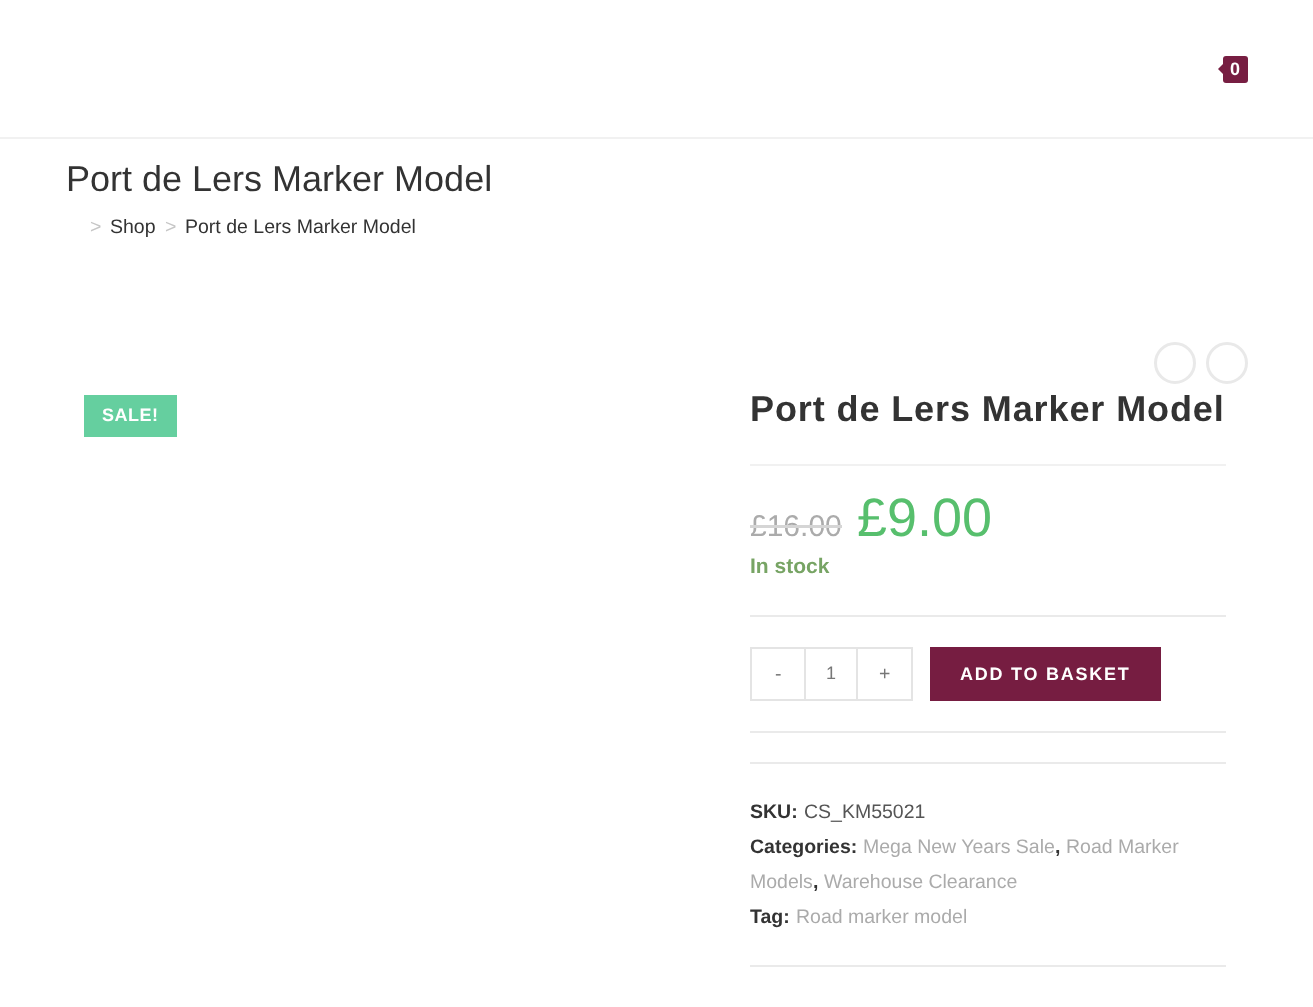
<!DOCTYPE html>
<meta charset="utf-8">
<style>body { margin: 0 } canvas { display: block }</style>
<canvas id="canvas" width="1313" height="1007"></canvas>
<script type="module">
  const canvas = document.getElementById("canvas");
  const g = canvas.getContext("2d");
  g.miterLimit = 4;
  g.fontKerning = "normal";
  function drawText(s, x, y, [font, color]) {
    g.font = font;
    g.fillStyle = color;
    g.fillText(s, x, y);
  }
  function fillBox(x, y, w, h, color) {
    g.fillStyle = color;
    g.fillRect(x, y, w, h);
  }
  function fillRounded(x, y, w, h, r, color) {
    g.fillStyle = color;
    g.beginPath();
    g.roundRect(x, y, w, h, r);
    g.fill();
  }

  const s1 = ["bold 18px Liberation Sans", "#FFFFFF"];
  const s2 = ["36px Liberation Sans", "#333333"];
  const s3 = ["19.5px Liberation Sans", "#C6C6C6"];
  const s4 = ["19.5px Liberation Sans", "#333333"];
  const s5 = ["bold 36px Liberation Sans", "#333333"];
  const s6 = ["30px Liberation Sans", "#ABABAB"];
  const s7 = ["54px Liberation Sans", "#57BF6D"];
  const s8 = ["bold 21px Liberation Sans", "#77A464"];
  const s9 = ["19.5px Liberation Sans", "#777777"];
  const s10 = ["18px Liberation Sans", "#777777"];
  const s11 = ["bold 19.5px Liberation Sans", "#333333"];
  const s12 = ["19.5px Liberation Sans", "#555555"];
  const s13 = ["19.5px Liberation Sans", "#ABABAB"];

  fillBox(0, 0, 1313, 1007, "#FFFFFF");
  fillBox(0, 137, 1313, 2, "#F1F1F1");
  fillRounded(1223, 56, 25, 27, 3, "#771E42");
  g.beginPath();
  g.moveTo(1225.5, 61.5);
  g.lineTo(1225.5, 76.5);
  g.lineTo(1218, 69);
  g.closePath();
  g.fill();
  g.letterSpacing = "0.9px";
  drawText("0", 1230, 75, s1);
  g.letterSpacing = "0px";
  drawText("Port de Lers Marker Model", 66, 191, s2);
  drawText(">", 90, 233, s3);
  drawText("Shop", 110, 233, s4);
  drawText(">", 165, 233, s3);
  drawText("Port de Lers Marker Model", 185, 233, s4);
  g.beginPath();
  g.arc(1175, 363, 19.5, 0, Math.PI * 2);
  g.strokeStyle = "#E9E9E9";
  g.lineWidth = 3;
  g.stroke();
  g.beginPath();
  g.arc(1227, 363, 19.5, 0, Math.PI * 2);
  g.stroke();
  fillBox(84, 395, 93, 42, "#65CF9F");
  g.letterSpacing = "0.5px";
  drawText("SALE!", 102, 421, s1);
  fillBox(750, 464, 476, 2, "#F1F1F1");
  g.letterSpacing = "0.9px";
  drawText("Port de Lers Marker Model", 750, 421, s5);
  g.letterSpacing = "0px";
  drawText("£16.00", 750, 536, s6);
  fillBox(750, 525, 92, 3, "#D5D5D5");
  drawText("£9.00", 857, 536, s7);
  drawText("In stock", 750, 573, s8);
  fillBox(750, 615, 476, 2, "#EAEAEA");
  fillBox(750, 731, 476, 2, "#EAEAEA");
  fillBox(750, 647, 54, 2, "#E4E4E4");
  fillBox(750, 699, 54, 2, "#E4E4E4");
  fillBox(750, 647, 2, 54, "#E4E4E4");
  drawText("-", 775, 680, s9);
  g.strokeStyle = "#E4E4E4";
  g.lineWidth = 2;
  g.strokeRect(805, 648, 52, 52);
  drawText("1", 826, 679, s10);
  fillBox(858, 647, 54, 2, "#E4E4E4");
  fillBox(911, 647, 2, 54, "#E4E4E4");
  fillBox(858, 699, 54, 2, "#E4E4E4");
  drawText("+", 879, 680, s9);
  fillBox(930, 647, 231, 54, "#761D41");
  g.letterSpacing = "1.75px";
  drawText("ADD TO BASKET", 960, 680, s1);
  fillBox(750, 762, 476, 2, "#EAEAEA");
  fillBox(750, 965, 476, 2, "#EAEAEA");
  g.letterSpacing = "0px";
  drawText("SKU:", 750, 818, s11);
  drawText("CS_KM55021", 804, 818, s12);
  drawText("Categories:", 750, 853, s11);
  drawText("Mega New Years Sale", 863, 853, s13);
  drawText(",", 1055, 853, s11);
  drawText("Road Marker", 1066, 853, s13);
  drawText("Models", 750, 888, s13);
  drawText(",", 813, 888, s11);
  drawText("Warehouse Clearance", 824, 888, s13);
  drawText("Tag:", 750, 923, s11);
  drawText("Road marker model", 796, 923, s13);
</script>
